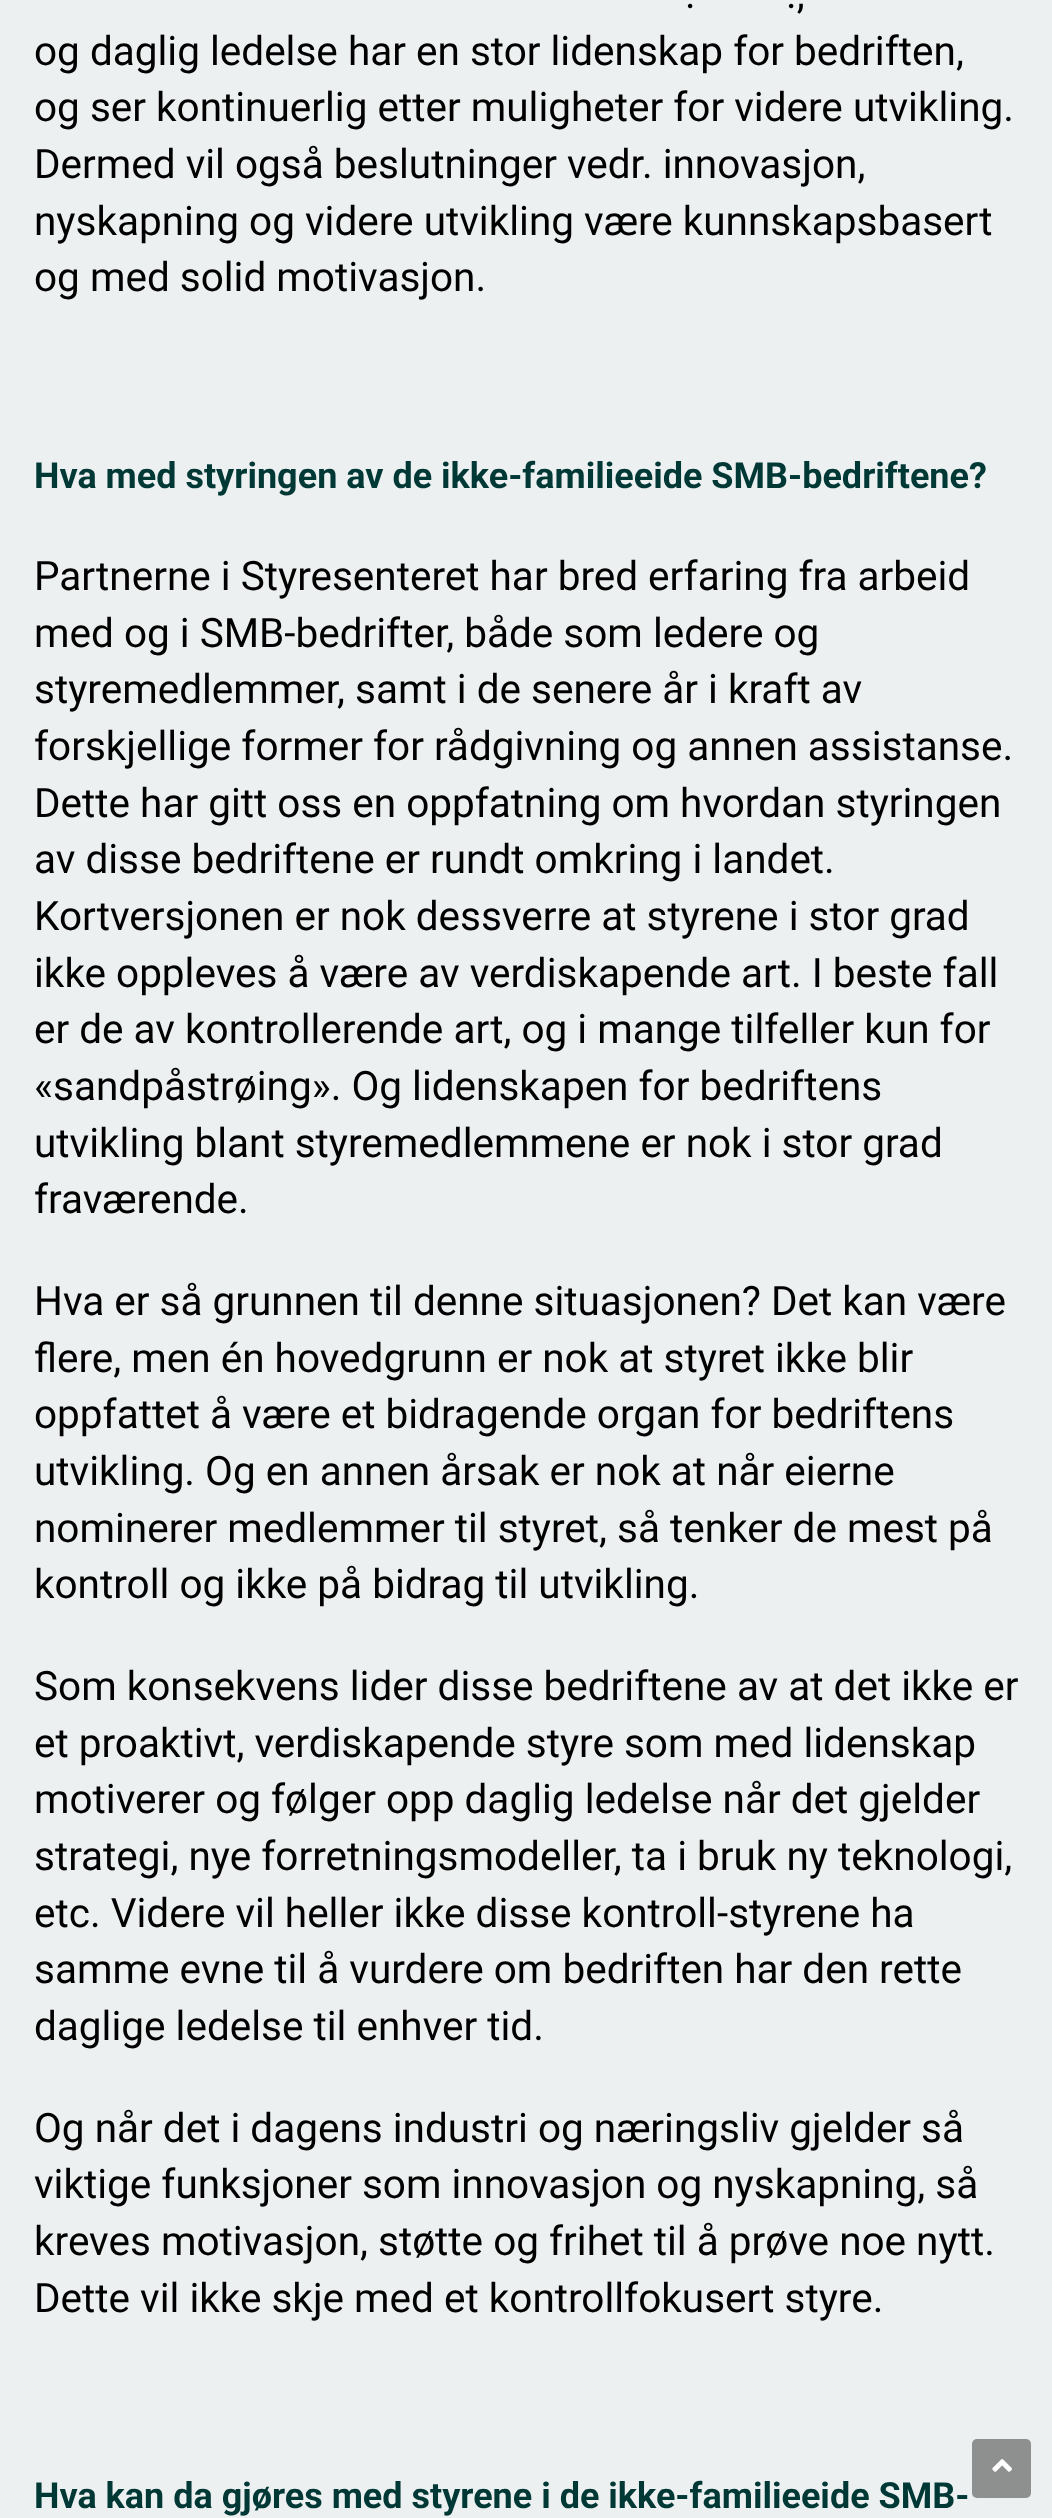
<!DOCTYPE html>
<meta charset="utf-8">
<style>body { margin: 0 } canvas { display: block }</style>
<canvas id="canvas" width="1052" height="2518"></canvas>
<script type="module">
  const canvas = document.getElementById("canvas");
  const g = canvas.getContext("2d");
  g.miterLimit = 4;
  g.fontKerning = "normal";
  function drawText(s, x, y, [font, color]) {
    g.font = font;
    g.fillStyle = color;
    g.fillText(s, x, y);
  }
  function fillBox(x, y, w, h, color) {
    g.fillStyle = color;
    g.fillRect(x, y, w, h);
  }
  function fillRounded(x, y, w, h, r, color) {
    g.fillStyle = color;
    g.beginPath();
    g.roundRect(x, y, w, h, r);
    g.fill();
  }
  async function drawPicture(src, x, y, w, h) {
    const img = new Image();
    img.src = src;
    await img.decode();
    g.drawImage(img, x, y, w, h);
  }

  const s1 = ["40.5px Roboto", "#000000"];
  const s2 = ["bold 36px Roboto", "#003836"];

  fillBox(0, 0, 1052, 2518, "#EDF0F0");
  drawText(".", 685, 8, s1);
  drawText(".,", 786, 8, s1);
  drawText("og daglig ledelse har en stor lidenskap for bedriften,", 34, 65, s1);
  drawText("og ser kontinuerlig etter muligheter for videre utvikling.", 34, 121, s1);
  drawText("Dermed vil også beslutninger vedr. innovasjon,", 34, 178, s1);
  drawText("nyskapning og videre utvikling være kunnskapsbasert", 34, 235, s1);
  drawText("og med solid motivasjon.", 34, 291, s1);
  drawText("Hva med styringen av de ikke-familieeide SMB-bedriftene?", 34, 488, s2);
  drawText("Partnerne i Styresenteret har bred erfaring fra arbeid", 34, 590, s1);
  drawText("med og i SMB-bedrifter, både som ledere og", 34, 647, s1);
  drawText("styremedlemmer, samt i de senere år i kraft av", 34, 703, s1);
  drawText("forskjellige former for rådgivning og annen assistanse.", 34, 760, s1);
  drawText("Dette har gitt oss en oppfatning om hvordan styringen", 34, 817, s1);
  drawText("av disse bedriftene er rundt omkring i landet.", 34, 873, s1);
  drawText("Kortversjonen er nok dessverre at styrene i stor grad", 34, 930, s1);
  drawText("ikke oppleves å være av verdiskapende art. I beste fall", 34, 987, s1);
  drawText("er de av kontrollerende art, og i mange tilfeller kun for", 34, 1043, s1);
  drawText("«sandpåstrøing». Og lidenskapen for bedriftens", 34, 1100, s1);
  drawText("utvikling blant styremedlemmene er nok i stor grad", 34, 1157, s1);
  drawText("fraværende.", 34, 1213, s1);
  drawText("Hva er så grunnen til denne situasjonen? Det kan være", 34, 1315, s1);
  drawText("flere, men én hovedgrunn er nok at styret ikke blir", 34, 1372, s1);
  drawText("oppfattet å være et bidragende organ for bedriftens", 34, 1428, s1);
  drawText("utvikling. Og en annen årsak er nok at når eierne", 34, 1485, s1);
  drawText("nominerer medlemmer til styret, så tenker de mest på", 34, 1542, s1);
  drawText("kontroll og ikke på bidrag til utvikling.", 34, 1598, s1);
  drawText("Som konsekvens lider disse bedriftene av at det ikke er", 34, 1700, s1);
  drawText("et proaktivt, verdiskapende styre som med lidenskap", 34, 1757, s1);
  drawText("motiverer og følger opp daglig ledelse når det gjelder", 34, 1813, s1);
  drawText("strategi, nye forretningsmodeller, ta i bruk ny teknologi,", 34, 1870, s1);
  drawText("etc. Videre vil heller ikke disse kontroll-styrene ha", 34, 1927, s1);
  drawText("samme evne til å vurdere om bedriften har den rette", 34, 1983, s1);
  drawText("daglige ledelse til enhver tid.", 34, 2040, s1);
  drawText("Og når det i dagens industri og næringsliv gjelder så", 34, 2142, s1);
  drawText("viktige funksjoner som innovasjon og nyskapning, så", 34, 2198, s1);
  drawText("kreves motivasjon, støtte og frihet til å prøve noe nytt.", 34, 2255, s1);
  drawText("Dette vil ikke skje med et kontrollfokusert styre.", 34, 2312, s1);
  drawText("Hva kan da gjøres med styrene i de ikke-familieeide SMB-", 34, 2508, s2);
  fillRounded(972, 2439, 59, 59, 5, "#8E9090");
  await drawPicture("pic1.png", 992, 2459, 20, 13);
</script>
